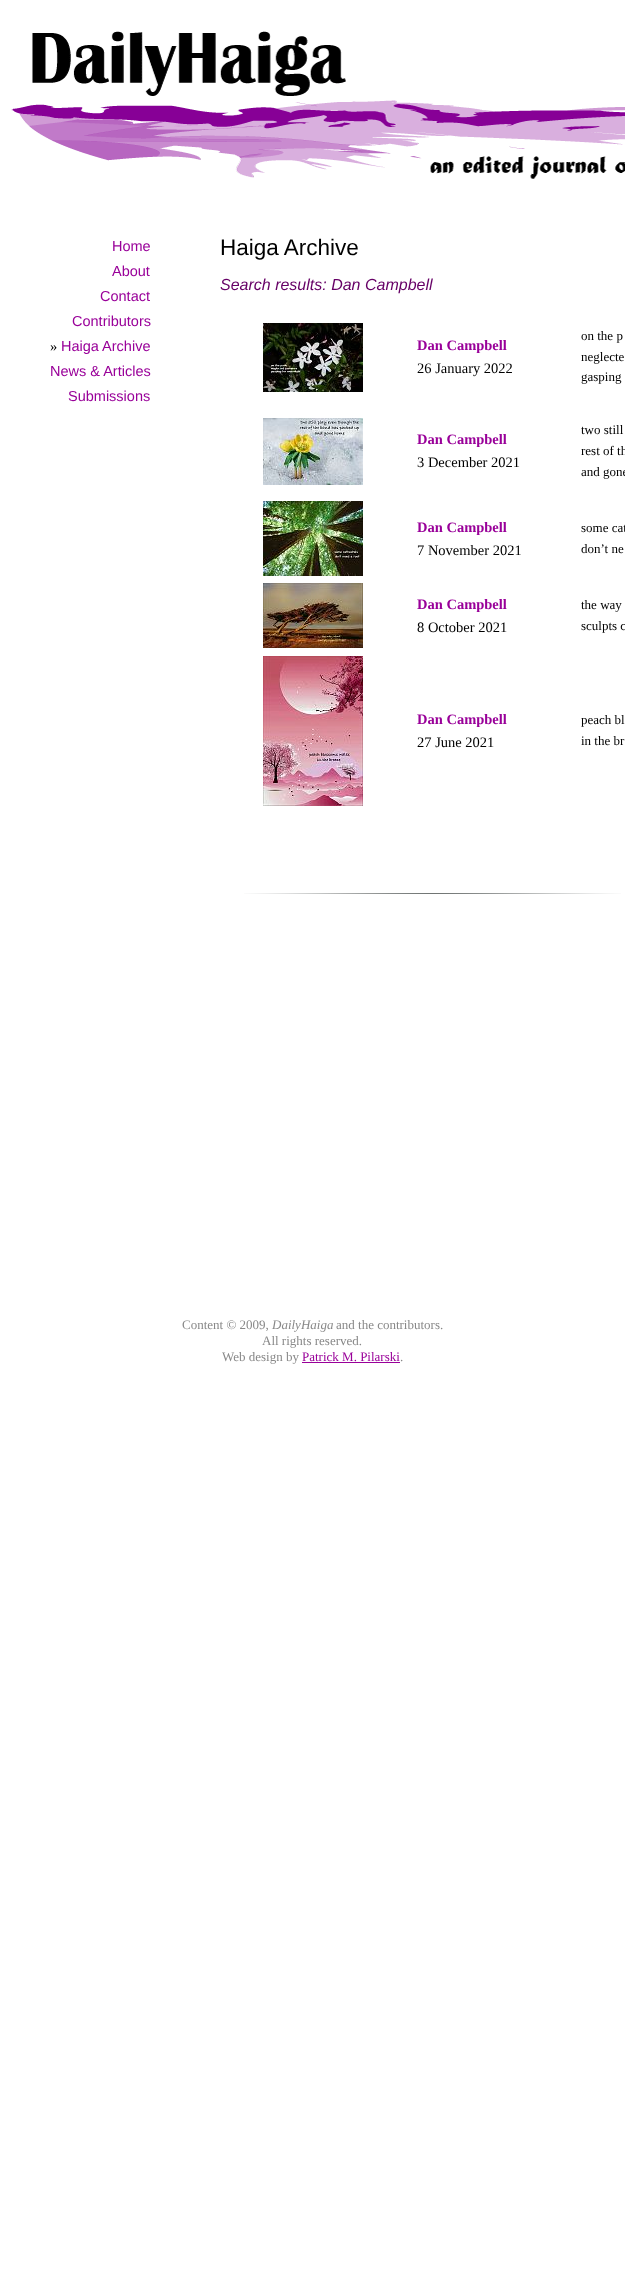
<!DOCTYPE html>
<meta charset="utf-8">
<style>body { margin: 0 } canvas { display: block }</style>
<canvas id="canvas" width="625" height="2274"></canvas>
<script type="module">
  const canvas = document.getElementById("canvas");
  const g = canvas.getContext("2d");
  g.miterLimit = 4;
  g.fontKerning = "normal";
  function drawText(s, x, y, [font, color]) {
    g.font = font;
    g.fillStyle = color;
    g.fillText(s, x, y);
  }
  function fillBox(x, y, w, h, color) {
    g.fillStyle = color;
    g.fillRect(x, y, w, h);
  }
  async function drawPicture(src, x, y, w, h) {
    const img = new Image();
    img.src = src;
    await img.decode();
    g.drawImage(img, x, y, w, h);
  }

  const s1 = ["14.5px Liberation Sans", "#990099"];
  const s2 = ["14.5px Liberation Serif", "#000000"];
  const s3 = ["22.5px Liberation Sans", "#000000"];
  const s4 = ["italic 16px Liberation Sans", "#660066"];
  const s5 = ["bold 14.5px Liberation Serif", "#990099"];
  const s6 = ["13px Liberation Serif", "#000000"];
  const s7 = ["13px Liberation Serif", "#888888"];
  const s8 = ["italic 13px Liberation Serif", "#888888"];
  const s9 = ["13px Liberation Serif", "#990099"];

  fillBox(0, 0, 625, 2274, "#FFFFFF");
  await drawPicture("pic1.png", 11, 31, 614, 148);
  drawText("Home", 112, 251, s1);
  drawText("About", 112, 276, s1);
  drawText("Contact", 100, 301, s1);
  drawText("Contributors", 72, 326, s1);
  drawText("»", 50, 351, s2);
  drawText("Haiga Archive", 61, 351, s1);
  drawText("News & Articles", 50, 376, s1);
  drawText("Submissions", 68, 401, s1);
  drawText("Haiga Archive", 220, 255, s3);
  drawText("Search results: Dan Campbell", 220, 290, s4);
  await drawPicture("pic2.png", 263, 323, 100, 69);
  drawText("Dan Campbell", 417, 350, s5);
  drawText("26 January 2022", 417, 373, s2);
  drawText("on the p", 581, 340, s6);
  drawText("neglecte", 581, 361, s6);
  drawText("gasping", 581, 381, s6);
  await drawPicture("pic3.png", 263, 418, 100, 67);
  drawText("Dan Campbell", 417, 444, s5);
  drawText("3 December 2021", 417, 467, s2);
  drawText("two still", 581, 434, s6);
  drawText("rest of th", 581, 455, s6);
  drawText("and gone", 581, 476, s6);
  await drawPicture("pic4.png", 263, 501, 100, 75);
  drawText("Dan Campbell", 417, 532, s5);
  drawText("7 November 2021", 417, 555, s2);
  drawText("some cat", 581, 532, s6);
  drawText("don’t ne", 581, 553, s6);
  await drawPicture("pic5.png", 263, 583, 100, 65);
  drawText("Dan Campbell", 417, 609, s5);
  drawText("8 October 2021", 417, 632, s2);
  drawText("the way", 581, 609, s6);
  drawText("sculpts c", 581, 630, s6);
  await drawPicture("pic6.png", 263, 656, 100, 150);
  drawText("Dan Campbell", 417, 724, s5);
  drawText("27 June 2021", 417, 747, s2);
  drawText("peach bl", 581, 724, s6);
  drawText("in the br", 581, 745, s6);
  await drawPicture("pic7.png", 244, 893, 377, 1);
  drawText("Content © 2009,", 182, 1329, s7);
  drawText("DailyHaiga", 272, 1329, s8);
  drawText("and the contributors.", 336, 1329, s7);
  drawText("All rights reserved.", 262, 1345, s7);
  drawText("Web design by", 222, 1361, s7);
  drawText("Patrick M. Pilarski", 302, 1361, s9);
  drawText(".", 400, 1361, s7);
  fillBox(302, 1362, 98, 1, "#990099");
</script>
